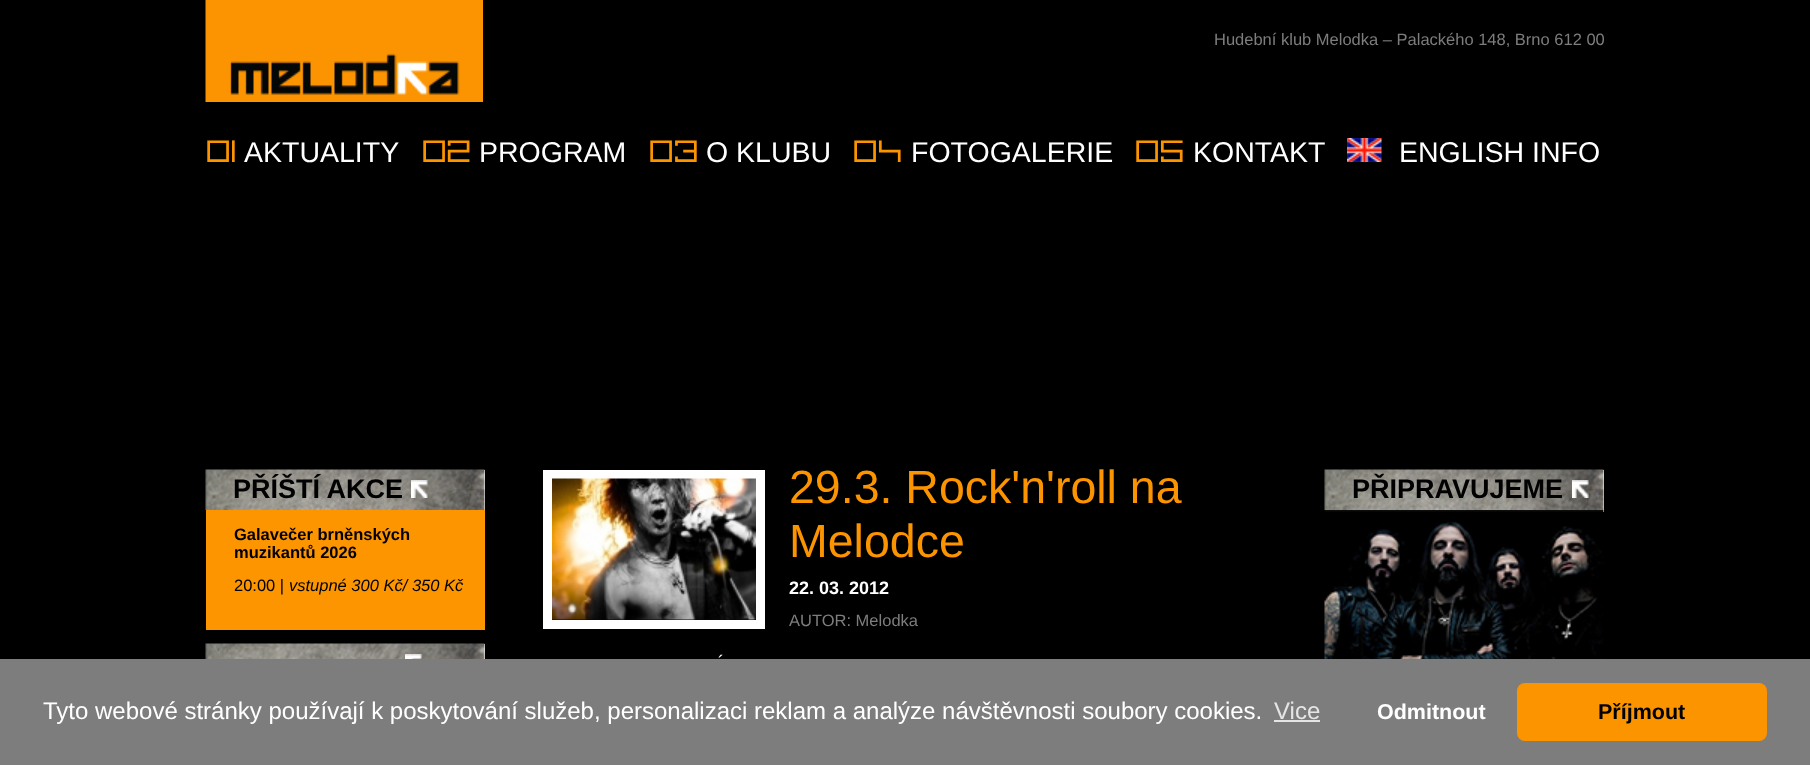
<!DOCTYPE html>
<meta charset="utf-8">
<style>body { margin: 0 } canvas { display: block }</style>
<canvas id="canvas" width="1810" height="765"></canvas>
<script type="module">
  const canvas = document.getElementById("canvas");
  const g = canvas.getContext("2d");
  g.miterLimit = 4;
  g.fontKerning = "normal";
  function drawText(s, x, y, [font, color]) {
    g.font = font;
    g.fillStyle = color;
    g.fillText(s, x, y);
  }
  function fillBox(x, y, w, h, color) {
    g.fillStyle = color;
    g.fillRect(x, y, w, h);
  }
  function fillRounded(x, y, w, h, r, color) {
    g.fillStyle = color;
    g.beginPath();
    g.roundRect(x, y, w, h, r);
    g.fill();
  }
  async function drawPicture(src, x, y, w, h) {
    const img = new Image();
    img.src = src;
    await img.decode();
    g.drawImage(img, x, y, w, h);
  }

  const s1 = ["16.5px Liberation Sans", "#7D7D7D"];
  const s2 = ["27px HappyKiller", "#FC9400"];
  const s3 = ["28.5px Liberation Sans", "#FFFFFF"];
  const s4 = ["bold 27px Liberation Sans", "#000000"];
  const s5 = ["bold 16.5px Liberation Sans", "#000000"];
  const s6 = ["16.5px Liberation Sans", "#000000"];
  const s7 = ["italic 16.5px Liberation Sans", "#000000"];
  const s8 = ["46.5px Liberation Sans", "#FC9400"];
  const s9 = ["bold 18px Liberation Sans", "#FFFFFF"];
  const s10 = ["18px Liberation Sans", "#FFFFFF"];
  const s11 = ["24px Liberation Sans", "#FFFFFF"];
  const s12 = ["24px Liberation Sans", "#E5E5E5"];
  const s13 = ["bold 21.5px Liberation Sans", "#FFFFFF"];
  const s14 = ["bold 21.5px Liberation Sans", "#000000"];

  fillBox(0, 0, 1810, 765, "#000000");
  await drawPicture("pic1.png", 205, 0, 278, 102);
  drawText("Hudební klub Melodka – Palackého 148, Brno 612 00", 1214, 45, s1);
  drawText("01", 206, 162, s2);
  drawText("AKTUALITY", 244, 162, s3);
  drawText("02", 422, 162, s2);
  drawText("PROGRAM", 479, 162, s3);
  drawText("03", 649, 162, s2);
  drawText("O KLUBU", 706, 162, s3);
  drawText("04", 853, 162, s2);
  drawText("FOTOGALERIE", 911, 162, s3);
  drawText("05", 1135, 162, s2);
  drawText("KONTAKT", 1193, 162, s3);
  await drawPicture("pic2.png", 1347, 138, 35, 24);
  drawText("ENGLISH INFO", 1399, 162, s3);
  fillBox(484, 470, 1, 40, "#FFFFFF");
  await drawPicture("pic3.png", 205, 469, 280, 41);
  drawText("PŘÍŠTÍ AKCE", 233, 498, s4);
  await drawPicture("pic4.png", 411, 480, 17, 18);
  fillBox(206, 510, 279, 120, "#FC9500");
  drawText("Galavečer brněnských", 234, 540, s5);
  drawText("muzikantů 2026", 234, 558, s5);
  drawText("20:00 |", 234, 591, s6);
  drawText("vstupné 300 Kč/ 350 Kč", 289, 591, s7);
  fillBox(484, 644, 1, 15, "#FFFFFF");
  await drawPicture("pic5.png", 205, 643, 280, 16);
  await drawPicture("pic6.png", 405, 654, 17, 5);
  await drawPicture("pic7.png", 552, 619, 204, 1);
  g.strokeStyle = "#FFFFFF";
  g.lineWidth = 9;
  g.strokeRect(547.5, 474.5, 213, 150);
  await drawPicture("pic8.png", 552, 478, 204, 142);
  drawText("29.3. Rock'n'roll na", 789, 503, s8);
  drawText("Melodce", 789, 557, s8);
  drawText("22. 03. 2012", 789, 594, s9);
  drawText("AUTOR: Melodka", 789, 626, s1);
  drawText("´", 718, 668, s10);
  fillBox(1603, 470, 1, 42, "#FFFFFF");
  await drawPicture("pic9.png", 1324, 469, 280, 41);
  drawText("PŘIPRAVUJEME", 1352, 498, s4);
  await drawPicture("pic10.png", 1572, 480, 17, 18);
  await drawPicture("pic11.png", 1324, 510, 280, 149);
  fillBox(0, 659, 1810, 106, "#7D7D7D");
  drawText("Tyto webové stránky používají k poskytování služeb, personalizaci reklam a analýze návštěvnosti soubory cookies.", 43, 719, s11);
  drawText("Vice", 1274, 719, s12);
  fillBox(1274, 720, 46, 2, "#E5E5E5");
  drawText("Odmitnout", 1377, 719, s13);
  fillRounded(1517, 683, 250, 58, 8, "#FC9400");
  drawText("Příjmout", 1598, 719, s14);
</script>
